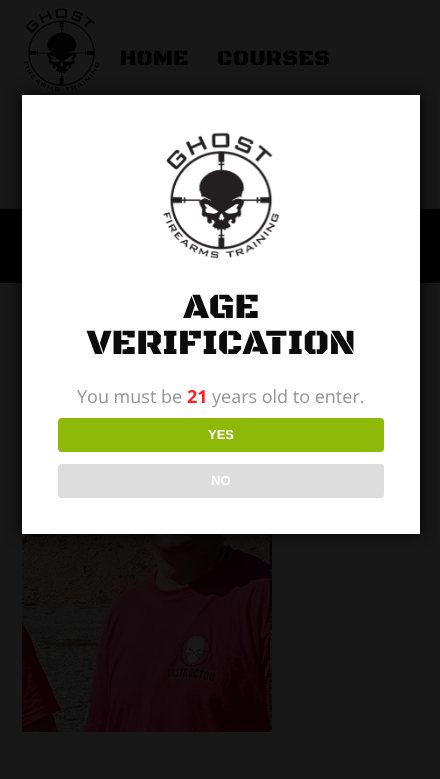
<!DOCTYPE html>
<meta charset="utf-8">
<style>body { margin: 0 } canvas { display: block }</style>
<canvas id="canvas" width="440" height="779"></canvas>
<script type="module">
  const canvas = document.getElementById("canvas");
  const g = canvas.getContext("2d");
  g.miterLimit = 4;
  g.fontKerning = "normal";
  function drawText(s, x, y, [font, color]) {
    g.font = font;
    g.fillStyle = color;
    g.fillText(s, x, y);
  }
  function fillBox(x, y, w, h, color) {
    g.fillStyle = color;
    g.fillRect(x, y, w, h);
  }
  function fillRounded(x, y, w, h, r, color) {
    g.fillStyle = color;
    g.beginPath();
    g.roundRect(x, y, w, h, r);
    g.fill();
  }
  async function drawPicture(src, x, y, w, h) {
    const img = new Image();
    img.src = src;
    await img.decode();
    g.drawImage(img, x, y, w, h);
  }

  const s1 = ["900 22px Black Ops One", "#010101"];
  const s2 = ["900 36px Black Ops One", "#0C0C0C"];
  const s3 = ["18px Open Sans", "#959595"];
  const s4 = ["bold 18px Open Sans", "#FF1F1F"];
  const s5 = ["bold 13px Liberation Sans", "#FFFFFF"];

  fillBox(0, 0, 440, 779, "#181818");
  fillBox(0, 208, 440, 1, "#141414");
  await drawPicture("pic1.png", 22, 7, 79, 86);
  g.letterSpacing = "0.5px";
  drawText("HOME", 120, 65, s1);
  drawText("COURSES", 217, 65, s1);
  fillBox(0, 209, 440, 74, "#010101");
  await drawPicture("pic2.png", 22, 534, 250, 198);
  g.fillStyle = "#000000";
  g.filter = "blur(7.5px)";
  g.beginPath();
  g.rect(22, 95, 398, 439);
  g.fill();
  g.filter = "none";
  fillBox(22, 95, 398, 439, "#FFFFFF");
  await drawPicture("pic3.png", 163, 132, 117, 127);
  g.letterSpacing = "0px";
  drawText("AGE", 183, 318, s2);
  drawText("VERIFICATION", 87, 354, s2);
  drawText("You must be", 77, 403, s3);
  drawText("21", 187, 403, s4);
  drawText("years old to enter.", 212, 403, s3);
  fillRounded(58, 418, 326, 34, 4, "#8EB908");
  drawText("YES", 208, 439, s5);
  fillRounded(58, 464, 326, 34, 4, "#DDDDDD");
  drawText("NO", 211, 485, s5);
</script>
